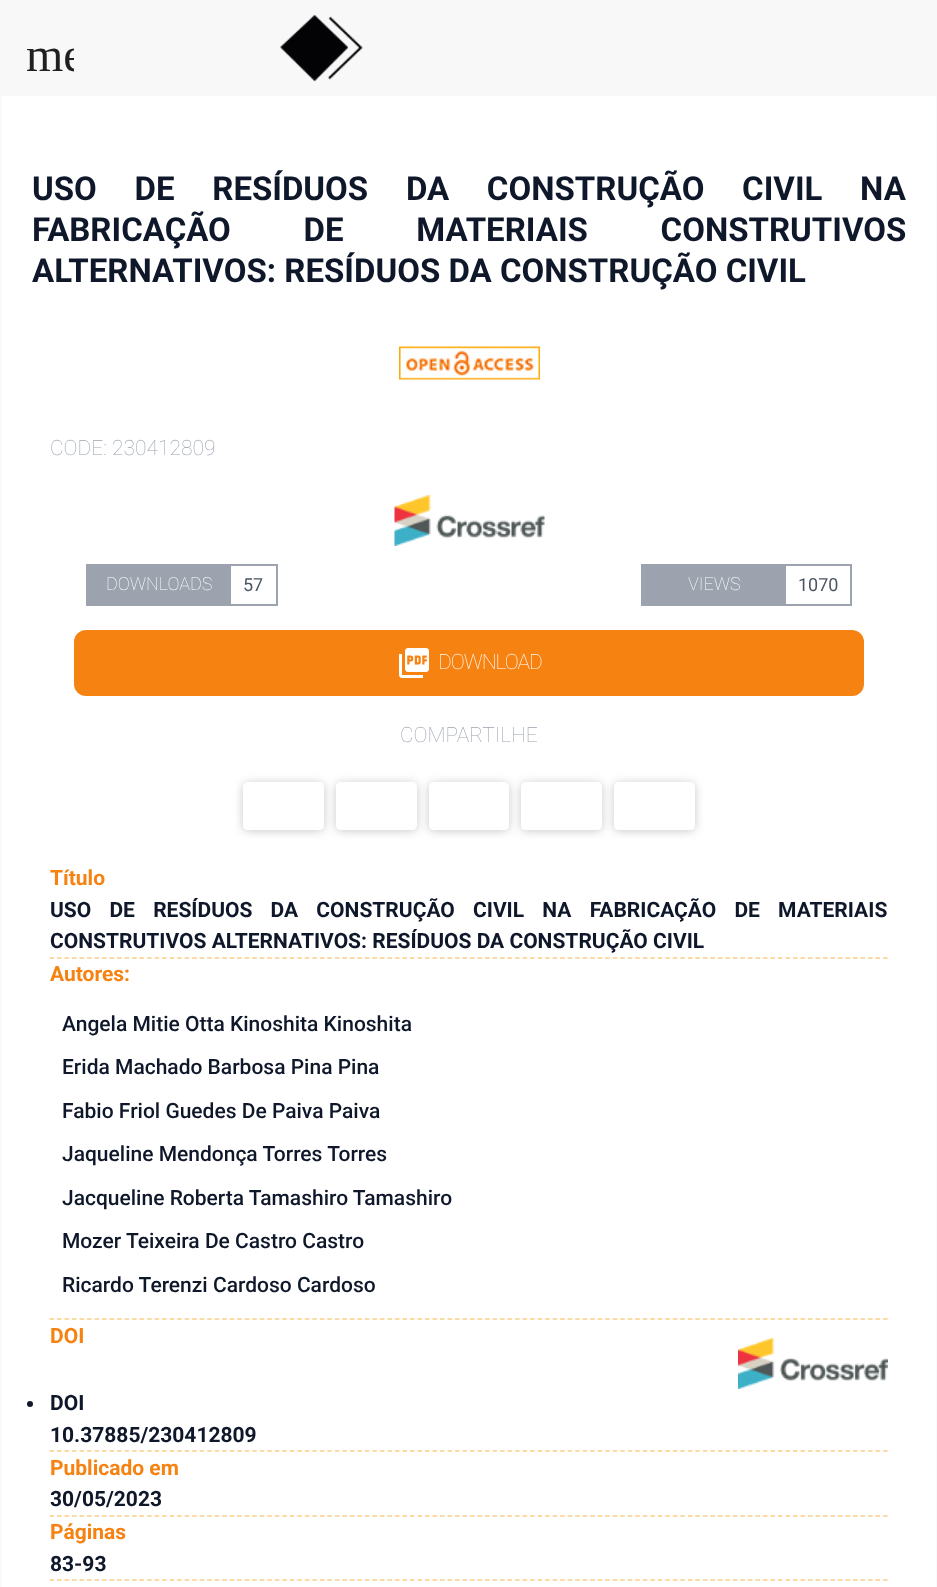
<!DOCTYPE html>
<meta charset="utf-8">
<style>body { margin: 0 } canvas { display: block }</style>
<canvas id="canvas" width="937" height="1587"></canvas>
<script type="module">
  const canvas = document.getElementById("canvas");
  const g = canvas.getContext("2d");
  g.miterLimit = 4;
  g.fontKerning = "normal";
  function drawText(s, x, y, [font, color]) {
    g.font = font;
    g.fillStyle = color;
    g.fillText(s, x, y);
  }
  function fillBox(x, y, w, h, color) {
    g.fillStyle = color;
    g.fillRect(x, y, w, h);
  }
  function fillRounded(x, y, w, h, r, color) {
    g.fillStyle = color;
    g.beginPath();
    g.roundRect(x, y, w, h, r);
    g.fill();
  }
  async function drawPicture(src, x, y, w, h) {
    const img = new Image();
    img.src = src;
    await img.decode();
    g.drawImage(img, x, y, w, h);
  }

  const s1 = ["48px Liberation Serif", "#202020"];
  const s2 = ["bold 33px Roboto", "#0F172A"];
  const s3 = ["100 21px Roboto", "#9CA3AF"];
  const s4 = ["100 18px Roboto", "#FFFFFF"];
  const s5 = ["18px Roboto", "#4B5563"];
  const s6 = ["100 21px Roboto", "#FFFFFF"];
  const s7 = ["bold 21px Roboto", "#F68212"];
  const s8 = ["bold 21px Roboto", "#0F172A"];
  const s9 = ["500 21px Roboto", "#0F172A"];

  fillBox(0, 0, 937, 1587, "#FFFFFF");
  fillBox(0, 0, 937, 96, "#F9F8F9");
  g.save();
  g.beginPath();
  g.rect(26, 30, 48, 48);
  g.clip();
  drawText("me", 26, 71, s1);
  g.restore();
  await drawPicture("pic1.png", 280, 14, 83, 68);
  fillBox(936, 96, 1, 1491, "#F9FAFB");
  fillBox(0, 96, 2, 1491, "#F9FAFB");
  g.wordSpacing = "29.5px";
  drawText("USO DE RESÍDUOS DA CONSTRUÇÃO CIVIL NA", 32, 200, s2);
  g.wordSpacing = "64.5px";
  drawText("FABRICAÇÃO DE MATERIAIS CONSTRUTIVOS", 32, 241, s2);
  g.wordSpacing = "0px";
  drawText("ALTERNATIVOS: RESÍDUOS DA CONSTRUÇÃO CIVIL", 32, 282, s2);
  await drawPicture("pic2.png", 399, 346, 141, 34);
  drawText("CODE: 230412809", 50, 455, s3);
  await drawPicture("pic3.png", 394, 495, 151, 51);
  g.strokeStyle = "#9CA3AF";
  g.lineWidth = 2;
  g.strokeRect(87, 565, 190, 40);
  fillBox(88, 566, 143, 38, "#9CA3AF");
  drawText("DOWNLOADS", 106, 590, s4);
  drawText("57", 243, 591, s5);
  g.strokeRect(642, 565, 209, 40);
  fillBox(643, 566, 143, 38, "#9CA3AF");
  drawText("VIEWS", 688, 590, s4);
  drawText("1070", 798, 591, s5);
  fillRounded(74, 630, 790, 66, 12, "#F68212");
  await drawPicture("pic4.png", 399, 648, 30, 30);
  g.letterSpacing = "-1px";
  drawText("DOWNLOAD", 438, 669, s6);
  g.letterSpacing = "0px";
  drawText("COMPARTILHE", 400, 742, s3);
  g.save();
  g.beginPath();
  g.moveTo(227, 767);
  g.lineTo(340, 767);
  g.lineTo(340, 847);
  g.lineTo(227, 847);
  g.closePath();
  g.moveTo(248, 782);
  g.lineTo(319, 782);
  g.bezierCurveTo(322, 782, 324, 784, 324, 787);
  g.lineTo(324, 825);
  g.bezierCurveTo(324, 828, 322, 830, 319, 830);
  g.lineTo(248, 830);
  g.bezierCurveTo(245, 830, 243, 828, 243, 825);
  g.lineTo(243, 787);
  g.bezierCurveTo(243, 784, 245, 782, 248, 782);
  g.closePath();
  g.clip("evenodd");
  g.fillStyle = "rgba(165, 165, 165, 0.6)";
  g.filter = "blur(5px)";
  g.beginPath();
  g.roundRect(243, 783, 81, 48, 5);
  g.fill();
  g.filter = "none";
  g.restore();
  g.save();
  g.beginPath();
  g.moveTo(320, 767);
  g.lineTo(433, 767);
  g.lineTo(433, 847);
  g.lineTo(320, 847);
  g.closePath();
  g.moveTo(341, 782);
  g.lineTo(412, 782);
  g.bezierCurveTo(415, 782, 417, 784, 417, 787);
  g.lineTo(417, 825);
  g.bezierCurveTo(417, 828, 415, 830, 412, 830);
  g.lineTo(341, 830);
  g.bezierCurveTo(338, 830, 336, 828, 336, 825);
  g.lineTo(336, 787);
  g.bezierCurveTo(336, 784, 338, 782, 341, 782);
  g.closePath();
  g.clip("evenodd");
  g.fillStyle = "rgba(165, 165, 165, 0.6)";
  g.filter = "blur(5px)";
  g.beginPath();
  g.roundRect(336, 783, 81, 48, 5);
  g.fill();
  g.filter = "none";
  g.restore();
  g.save();
  g.beginPath();
  g.moveTo(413, 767);
  g.lineTo(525, 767);
  g.lineTo(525, 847);
  g.lineTo(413, 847);
  g.closePath();
  g.moveTo(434, 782);
  g.lineTo(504, 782);
  g.bezierCurveTo(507, 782, 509, 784, 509, 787);
  g.lineTo(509, 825);
  g.bezierCurveTo(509, 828, 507, 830, 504, 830);
  g.lineTo(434, 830);
  g.bezierCurveTo(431, 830, 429, 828, 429, 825);
  g.lineTo(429, 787);
  g.bezierCurveTo(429, 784, 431, 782, 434, 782);
  g.closePath();
  g.clip("evenodd");
  g.fillStyle = "rgba(165, 165, 165, 0.6)";
  g.filter = "blur(5px)";
  g.beginPath();
  g.roundRect(429, 783, 80, 48, 5);
  g.fill();
  g.filter = "none";
  g.restore();
  g.save();
  g.beginPath();
  g.moveTo(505, 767);
  g.lineTo(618, 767);
  g.lineTo(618, 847);
  g.lineTo(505, 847);
  g.closePath();
  g.moveTo(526, 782);
  g.lineTo(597, 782);
  g.bezierCurveTo(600, 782, 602, 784, 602, 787);
  g.lineTo(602, 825);
  g.bezierCurveTo(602, 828, 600, 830, 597, 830);
  g.lineTo(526, 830);
  g.bezierCurveTo(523, 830, 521, 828, 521, 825);
  g.lineTo(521, 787);
  g.bezierCurveTo(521, 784, 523, 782, 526, 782);
  g.closePath();
  g.clip("evenodd");
  g.fillStyle = "rgba(165, 165, 165, 0.6)";
  g.filter = "blur(5px)";
  g.beginPath();
  g.roundRect(521, 783, 81, 48, 5);
  g.fill();
  g.filter = "none";
  g.restore();
  g.save();
  g.beginPath();
  g.moveTo(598, 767);
  g.lineTo(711, 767);
  g.lineTo(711, 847);
  g.lineTo(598, 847);
  g.closePath();
  g.moveTo(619, 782);
  g.lineTo(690, 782);
  g.bezierCurveTo(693, 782, 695, 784, 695, 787);
  g.lineTo(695, 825);
  g.bezierCurveTo(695, 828, 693, 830, 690, 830);
  g.lineTo(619, 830);
  g.bezierCurveTo(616, 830, 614, 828, 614, 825);
  g.lineTo(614, 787);
  g.bezierCurveTo(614, 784, 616, 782, 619, 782);
  g.closePath();
  g.clip("evenodd");
  g.fillStyle = "rgba(165, 165, 165, 0.6)";
  g.filter = "blur(5px)";
  g.beginPath();
  g.roundRect(614, 783, 81, 48, 5);
  g.fill();
  g.filter = "none";
  g.restore();
  drawText("Título", 50, 885, s7);
  g.wordSpacing = "13px";
  drawText("USO DE RESÍDUOS DA CONSTRUÇÃO CIVIL NA FABRICAÇÃO DE MATERIAIS", 50, 917, s8);
  g.wordSpacing = "0px";
  drawText("CONSTRUTIVOS ALTERNATIVOS: RESÍDUOS DA CONSTRUÇÃO CIVIL", 50, 948, s8);
  g.beginPath();
  g.moveTo(49.5, 958);
  g.lineTo(888, 958);
  g.strokeStyle = "#FACF85";
  g.lineWidth = 1.5;
  g.setLineDash([4.5, 3.01]);
  g.stroke();
  drawText("Autores:", 50, 981, s7);
  drawText("Angela Mitie Otta Kinoshita Kinoshita", 62, 1031, s9);
  drawText("Erida Machado Barbosa Pina Pina", 62, 1074, s9);
  drawText("Fabio Friol Guedes De Paiva Paiva", 62, 1118, s9);
  drawText("Jaqueline Mendonça Torres Torres", 62, 1161, s9);
  drawText("Jacqueline Roberta Tamashiro Tamashiro", 62, 1205, s9);
  drawText("Mozer Teixeira De Castro Castro", 62, 1248, s9);
  drawText("Ricardo Terenzi Cardoso Cardoso", 62, 1292, s9);
  g.beginPath();
  g.moveTo(49.5, 1319);
  g.lineTo(888, 1319);
  g.stroke();
  drawText("DOI", 50, 1343, s7);
  g.fillStyle = "#111827";
  g.beginPath();
  g.arc(30, 1404, 3, 0, Math.PI * 2);
  g.fill();
  drawText("DOI", 50, 1410, s8);
  drawText("10.37885/230412809", 50, 1442, s8);
  await drawPicture("pic5.png", 738, 1338, 150, 51);
  g.beginPath();
  g.moveTo(49.5, 1451);
  g.lineTo(888, 1451);
  g.stroke();
  drawText("Publicado em", 50, 1475, s7);
  drawText("30/05/2023", 50, 1506, s8);
  g.beginPath();
  g.moveTo(49.5, 1516);
  g.lineTo(888, 1516);
  g.stroke();
  drawText("Páginas", 50, 1539, s7);
  drawText("83-93", 50, 1571, s8);
  g.beginPath();
  g.moveTo(49.5, 1580);
  g.lineTo(888, 1580);
  g.stroke();
</script>
